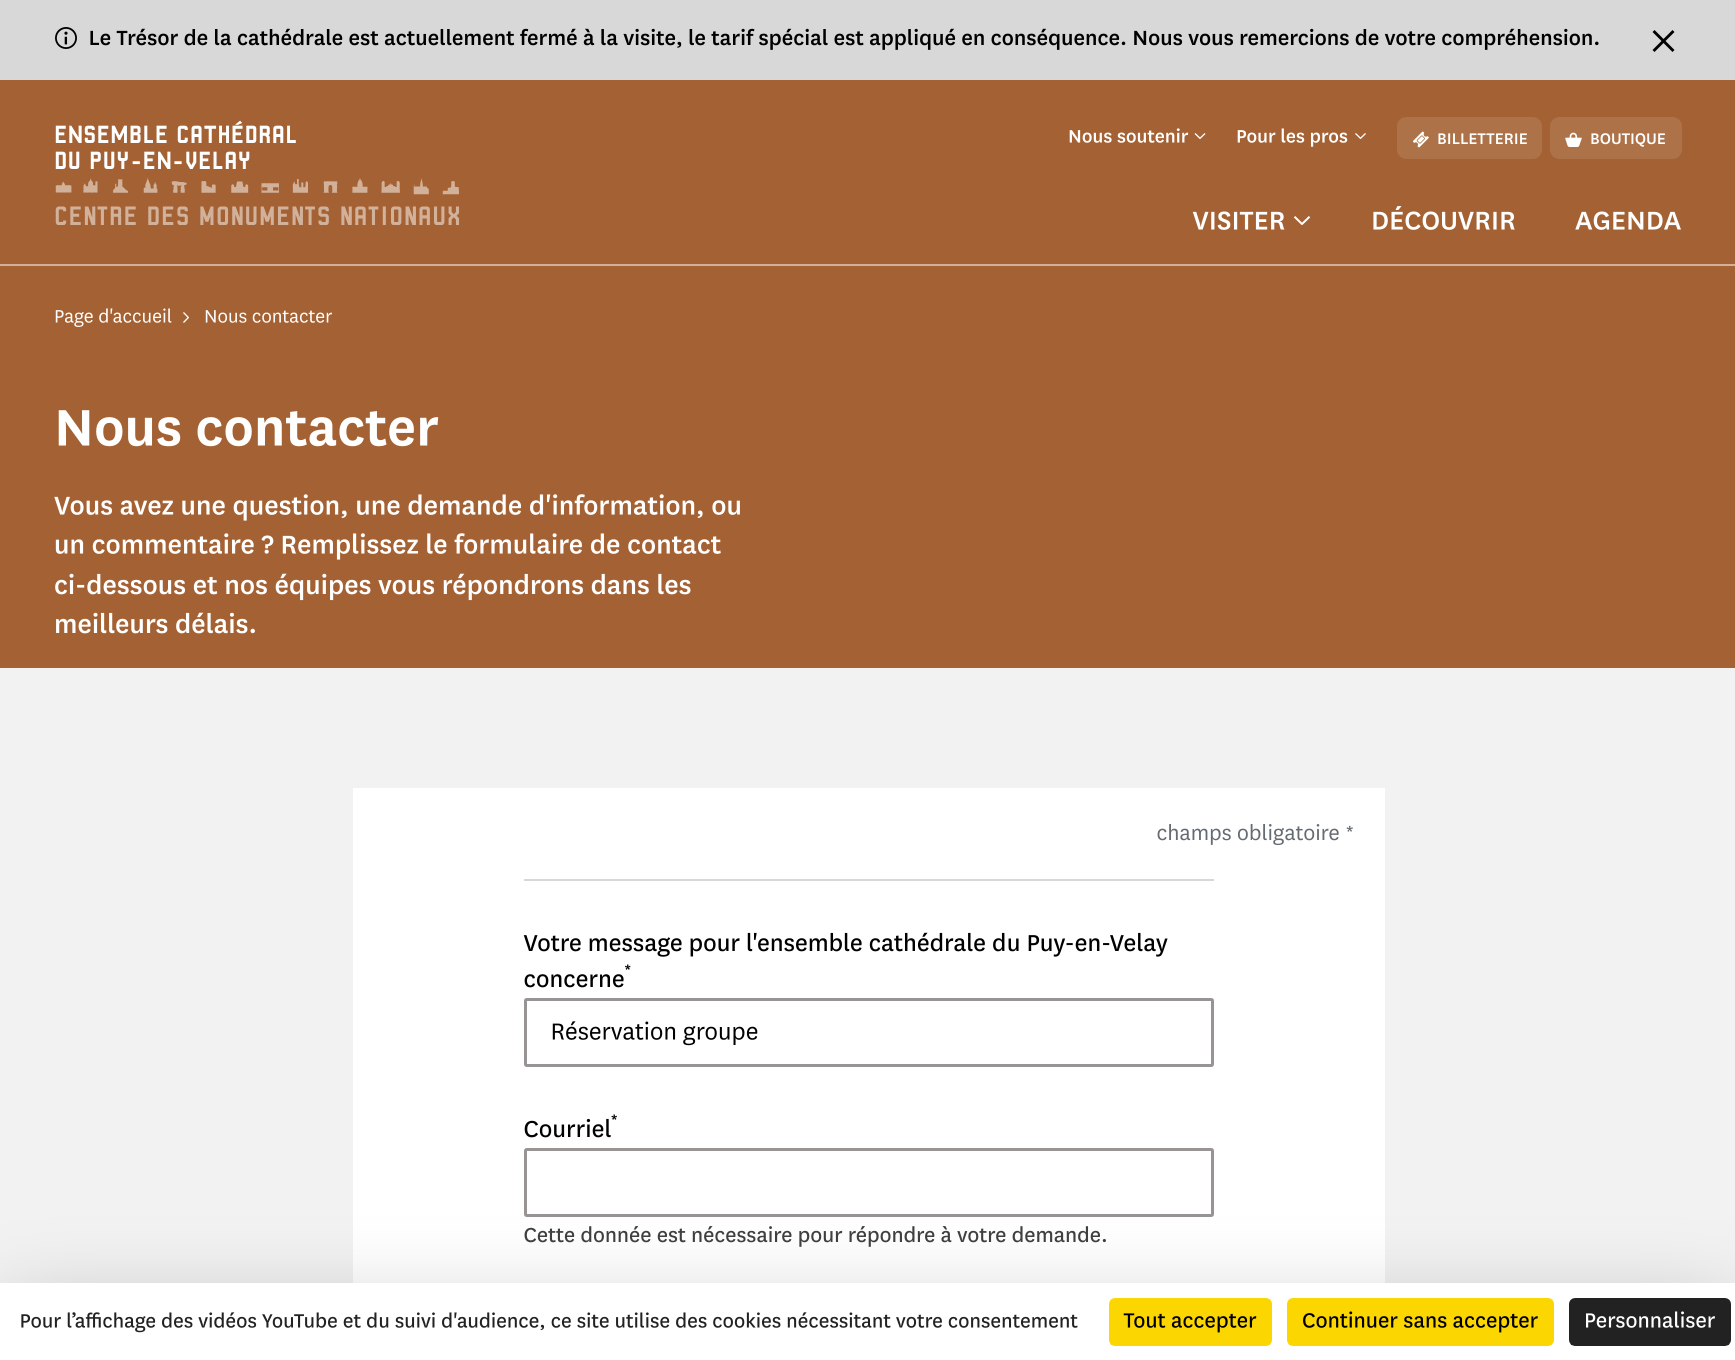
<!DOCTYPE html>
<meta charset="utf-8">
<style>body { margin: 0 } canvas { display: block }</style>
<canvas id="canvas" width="1735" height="1360"></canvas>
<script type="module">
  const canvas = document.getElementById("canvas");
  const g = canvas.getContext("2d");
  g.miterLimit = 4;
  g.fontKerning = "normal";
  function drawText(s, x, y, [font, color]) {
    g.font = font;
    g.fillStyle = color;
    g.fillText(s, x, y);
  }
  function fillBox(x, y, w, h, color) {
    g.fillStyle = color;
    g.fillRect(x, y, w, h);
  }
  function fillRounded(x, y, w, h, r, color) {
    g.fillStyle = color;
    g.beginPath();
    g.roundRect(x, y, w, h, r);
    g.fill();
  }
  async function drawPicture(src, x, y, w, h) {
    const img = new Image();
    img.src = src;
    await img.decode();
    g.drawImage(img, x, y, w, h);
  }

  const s1 = ["300 26.25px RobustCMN", "#FFFFFF"];

  fillBox(0, 0, 1735, 1360, "#D8D8D8");
  await drawPicture("pic1.png", 55, 27, 22, 22);
  await drawPicture("pic2.png", 90, 28, 1509, 22);
  await drawPicture("pic3.png", 1652, 30, 23, 22);
  fillBox(0, 80, 1735, 184, "#A46234");
  drawText("ENSEMBLE CATHÉDRAL", 54, 143, s1);
  drawText("DU PUY-EN-VELAY", 54, 169, s1);
  await drawPicture("pic4.png", 55, 177, 404, 48);
  await drawPicture("pic5.png", 1069, 128, 120, 15);
  await drawPicture("pic6.png", 1194, 133, 12, 6);
  await drawPicture("pic7.png", 1237, 128, 111, 19);
  await drawPicture("pic8.png", 1355, 133, 11, 6);
  fillRounded(1397, 117, 145, 42, 9, "#AD7248");
  await drawPicture("pic9.png", 1412, 131, 17, 17);
  await drawPicture("pic10.png", 1438, 133, 89, 11);
  fillRounded(1550, 117, 132, 42, 9, "#AD7248");
  await drawPicture("pic11.png", 1565, 132, 17, 15);
  await drawPicture("pic12.png", 1591, 133, 74, 14);
  await drawPicture("pic13.png", 1192, 211, 93, 19);
  await drawPicture("pic14.png", 1293, 216, 18, 9);
  await drawPicture("pic15.png", 1373, 206, 142, 24);
  await drawPicture("pic16.png", 1575, 211, 106, 19);
  fillBox(0, 266, 1735, 402, "#A46234");
  fillBox(0, 264, 1735, 2, "#D2B19A");
  await drawPicture("pic17.png", 55, 308, 117, 19);
  await drawPicture("pic18.png", 183, 312, 6, 11);
  await drawPicture("pic19.png", 205, 310, 127, 13);
  await drawPicture("pic20.png", 58, 410, 381, 37);
  await drawPicture("pic21.png", 54, 494, 686, 27);
  await drawPicture("pic22.png", 55, 533, 666, 27);
  await drawPicture("pic23.png", 55, 573, 636, 28);
  await drawPicture("pic24.png", 56, 612, 199, 22);
  fillBox(0, 668, 1735, 615, "#F2F2F2");
  fillBox(353, 788, 1032, 495, "#FFFFFF");
  await drawPicture("pic25.png", 1157, 824, 182, 22);
  await drawPicture("pic26.png", 1346, 825, 7, 7);
  fillBox(524, 879, 690, 2, "#D8D8D8");
  await drawPicture("pic27.png", 523, 932, 645, 25);
  await drawPicture("pic28.png", 625, 964, 6, 6);
  await drawPicture("pic29.png", 524, 974, 100, 14);
  g.beginPath();
  g.roundRect(525.5, 999.5, 687, 66, 1.5);
  g.strokeStyle = "#989494";
  g.lineWidth = 3;
  g.stroke();
  await drawPicture("pic30.png", 552, 1021, 206, 25);
  await drawPicture("pic31.png", 611, 1114, 6, 6);
  await drawPicture("pic32.png", 524, 1118, 87, 20);
  g.beginPath();
  g.roundRect(525.5, 1149.5, 687, 66, 1.5);
  g.stroke();
  await drawPicture("pic33.png", 524, 1226, 582, 21);
  g.fillStyle = "rgba(0, 0, 0, 0.25)";
  g.filter = "blur(45px)";
  g.beginPath();
  g.rect(0, 1313, 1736, 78);
  g.fill();
  g.filter = "none";
  fillBox(0, 1283, 1735, 77, "#FFFFFF");
  await drawPicture("pic34.png", 21, 1312, 1057, 21);
  fillRounded(1109, 1298, 163, 48, 6, "#FBD600");
  await drawPicture("pic35.png", 1123, 1313, 134, 20);
  fillRounded(1287, 1298, 267, 48, 6, "#FBD600");
  await drawPicture("pic36.png", 1303, 1311, 235, 22);
  fillRounded(1569, 1298, 162, 48, 6, "#222222");
  await drawPicture("pic37.png", 1586, 1311, 129, 17);
</script>
